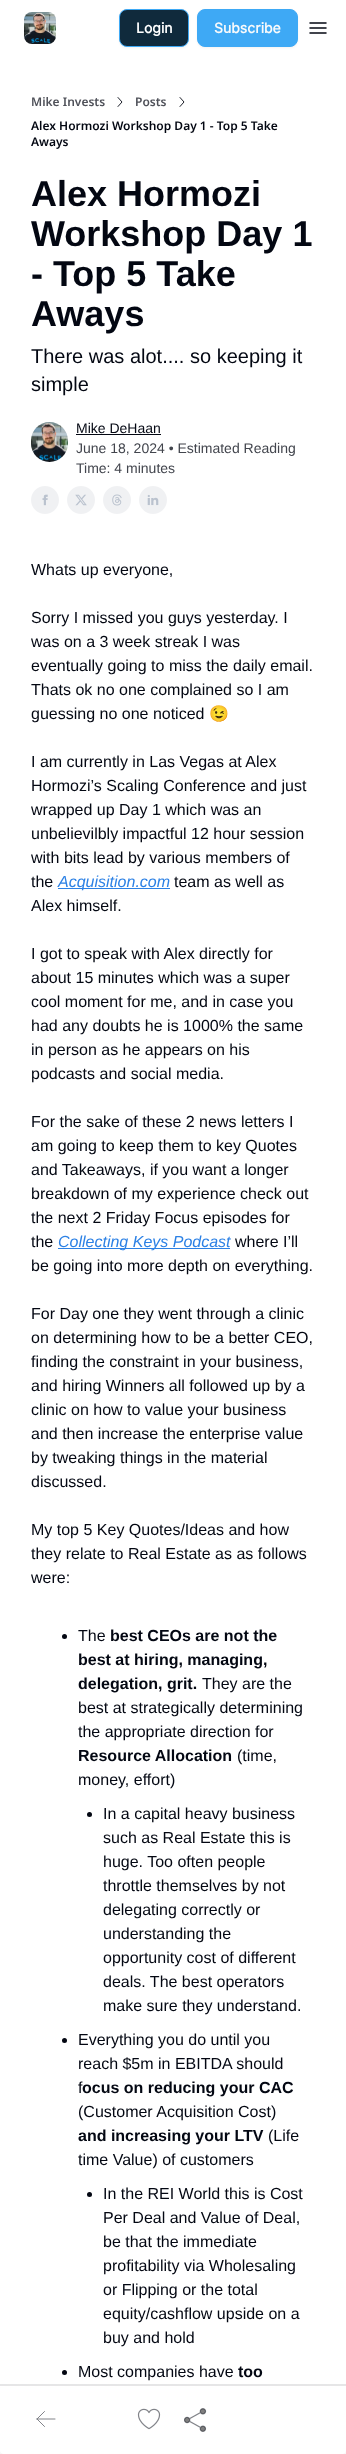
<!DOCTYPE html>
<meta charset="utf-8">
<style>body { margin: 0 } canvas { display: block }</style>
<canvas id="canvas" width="346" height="2454"></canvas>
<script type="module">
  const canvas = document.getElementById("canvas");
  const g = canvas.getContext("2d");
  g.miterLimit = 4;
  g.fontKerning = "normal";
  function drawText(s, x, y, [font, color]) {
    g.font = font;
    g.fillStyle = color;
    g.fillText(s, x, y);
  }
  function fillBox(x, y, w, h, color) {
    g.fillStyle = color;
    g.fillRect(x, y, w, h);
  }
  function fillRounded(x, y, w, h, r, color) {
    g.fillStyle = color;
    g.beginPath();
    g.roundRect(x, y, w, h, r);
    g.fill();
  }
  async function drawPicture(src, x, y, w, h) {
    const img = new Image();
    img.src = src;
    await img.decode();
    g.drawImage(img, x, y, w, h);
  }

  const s1 = ["bold 14px Inter", "#FFFFFF"];
  const s2 = ["bold 14px Inter", "#F9FAFB"];
  const s3 = ["600 12px Noto Sans", "#4F5159"];
  const s4 = ["600 12px Noto Sans", "#030712"];
  const s5 = ["bold 36px Liberation Sans", "#030712"];
  const s6 = ["20px Liberation Sans", "#030712"];
  const s7 = ["14px Liberation Sans", "#030712"];
  const s8 = ["14px Liberation Sans", "#42454D"];
  const s9 = ["16px Liberation Sans", "#030712"];
  const s10 = ["16px Noto Color Emoji", "#030712"];
  const s11 = ["italic 16px Liberation Sans", "#2C81E5"];
  const s12 = ["bold 16px Liberation Sans", "#030712"];

  fillBox(0, 0, 346, 2454, "#FFFFFF");
  await drawPicture("pic1.png", 24, 12, 32, 32);
  g.fillStyle = "rgba(0, 0, 0, 0.05)";
  g.filter = "blur(1px)";
  g.beginPath();
  g.roundRect(119, 10, 70, 38, 8);
  g.fill();
  g.filter = "none";
  g.fillStyle = "#102A3C";
  g.beginPath();
  g.roundRect(119.5, 9.5, 69, 37, 7.5);
  g.fill();
  g.strokeStyle = "#3EA9F5";
  g.stroke();
  drawText("Login", 136, 33, s1);
  g.fillStyle = "rgba(0, 0, 0, 0.05)";
  g.filter = "blur(1px)";
  g.beginPath();
  g.roundRect(197, 10, 101, 38, 8);
  g.fill();
  g.filter = "none";
  g.fillStyle = "#3EA9F5";
  g.beginPath();
  g.roundRect(197.5, 9.5, 100, 37, 7.5);
  g.fill();
  g.stroke();
  drawText("Subscribe", 214, 33, s2);
  g.beginPath();
  g.moveTo(310, 23);
  g.lineTo(326, 23);
  g.moveTo(310, 28);
  g.lineTo(326, 28);
  g.moveTo(310, 33);
  g.lineTo(326, 33);
  g.strokeStyle = "#030712";
  g.lineWidth = 1.5;
  g.lineCap = "round";
  g.lineJoin = "round";
  g.stroke();
  drawText("Mike Invests", 31, 106, s3);
  g.beginPath();
  g.moveTo(118, 97.5);
  g.lineTo(122, 102);
  g.lineTo(118, 106.5);
  g.lineWidth = 0.9;
  g.stroke();
  drawText("Posts", 135, 106, s3);
  g.beginPath();
  g.moveTo(180, 97.5);
  g.lineTo(184, 102);
  g.lineTo(180, 106.5);
  g.stroke();
  drawText("Alex Hormozi Workshop Day 1 - Top 5 Take", 31, 130, s4);
  drawText("Aways", 31, 146, s4);
  drawText("Alex Hormozi", 31, 206, s5);
  drawText("Workshop Day 1", 31, 246, s5);
  drawText("- Top 5 Take", 31, 286, s5);
  drawText("Aways", 31, 326, s5);
  drawText("There was alot.... so keeping it", 31, 363, s6);
  drawText("simple", 31, 391, s6);
  await drawPicture("pic2.png", 31, 422, 37, 40);
  drawText("Mike DeHaan", 76, 433, s7);
  fillBox(76, 434, 85, 1, "#030712");
  drawText("June 18, 2024 • Estimated Reading", 76, 453, s8);
  drawText("Time: 4 minutes", 76, 473, s8);
  await drawPicture("pic3.png", 31, 486, 28, 28);
  await drawPicture("pic4.png", 67, 486, 28, 28);
  await drawPicture("pic5.png", 103, 486, 28, 28);
  await drawPicture("pic6.png", 139, 486, 28, 28);
  drawText("Whats up everyone,", 31, 575, s9);
  drawText("Sorry I missed you guys yesterday. I", 31, 623, s9);
  drawText("was on a 3 week streak I was", 31, 647, s9);
  drawText("eventually going to miss the daily email.", 31, 671, s9);
  drawText("Thats ok no one complained so I am", 31, 695, s9);
  drawText("guessing no one noticed", 31, 719, s9);
  drawText("😉", 209, 719, s10);
  drawText("I am currently in Las Vegas at Alex", 31, 767, s9);
  drawText("Hormozi’s Scaling Conference and just", 31, 791, s9);
  drawText("wrapped up Day 1 which was an", 31, 815, s9);
  drawText("unbelievilbly impactful 12 hour session", 31, 839, s9);
  drawText("with bits lead by various members of", 31, 863, s9);
  drawText("the", 31, 887, s9);
  fillBox(58, 888, 112, 1, "#2C81E5");
  drawText("Acquisition.com", 58, 887, s11);
  drawText("team as well as", 174, 887, s9);
  drawText("Alex himself.", 31, 911, s9);
  drawText("I got to speak with Alex directly for", 31, 959, s9);
  drawText("about 15 minutes which was a super", 31, 983, s9);
  drawText("cool moment for me, and in case you", 31, 1007, s9);
  drawText("had any doubts he is 1000% the same", 31, 1031, s9);
  drawText("in person as he appears on his", 31, 1055, s9);
  drawText("podcasts and social media.", 31, 1079, s9);
  drawText("For the sake of these 2 news letters I", 31, 1127, s9);
  drawText("am going to keep them to key Quotes", 31, 1151, s9);
  drawText("and Takeaways, if you want a longer", 31, 1175, s9);
  drawText("breakdown of my experience check out", 31, 1199, s9);
  drawText("the next 2 Friday Focus episodes for", 31, 1223, s9);
  drawText("the", 31, 1247, s9);
  fillBox(58, 1248, 172, 1, "#2C81E5");
  drawText("Collecting Keys Podcast", 58, 1247, s11);
  drawText("where I’ll", 235, 1247, s9);
  drawText("be going into more depth on everything.", 31, 1271, s9);
  drawText("For Day one they went through a clinic", 31, 1319, s9);
  drawText("on determining how to be a better CEO,", 31, 1343, s9);
  drawText("finding the constraint in your business,", 31, 1367, s9);
  drawText("and hiring Winners all followed up by a", 31, 1391, s9);
  drawText("clinic on how to value your business", 31, 1415, s9);
  drawText("and then increase the enterprise value", 31, 1439, s9);
  drawText("by tweaking things in the material", 31, 1463, s9);
  drawText("discussed.", 31, 1487, s9);
  drawText("My top 5 Key Quotes/Ideas and how", 31, 1535, s9);
  drawText("they relate to Real Estate as as follows", 31, 1559, s9);
  drawText("were:", 31, 1583, s9);
  g.beginPath();
  g.arc(64.5, 1636.5, 2.5, 0, Math.PI * 2);
  g.fill();
  drawText("The", 78, 1641, s9);
  drawText("best CEOs are not the", 110, 1641, s12);
  drawText("best at hiring, managing,", 78, 1665, s12);
  drawText("delegation, grit.", 78, 1689, s12);
  drawText("They are the", 202, 1689, s9);
  drawText("best at strategically determining", 78, 1713, s9);
  drawText("the appropriate direction for", 78, 1737, s9);
  drawText("Resource Allocation", 78, 1761, s12);
  drawText("(time,", 237, 1761, s9);
  drawText("money, effort)", 78, 1785, s9);
  g.beginPath();
  g.arc(89.5, 1814.5, 2.5, 0, Math.PI * 2);
  g.fill();
  drawText("In a capital heavy business", 103, 1819, s9);
  drawText("such as Real Estate this is", 103, 1843, s9);
  drawText("huge. Too often people", 103, 1867, s9);
  drawText("throttle themselves by not", 103, 1891, s9);
  drawText("delegating correctly or", 103, 1915, s9);
  drawText("understanding the", 103, 1939, s9);
  drawText("opportunity cost of different", 103, 1963, s9);
  drawText("deals. The best operators", 103, 1987, s9);
  drawText("make sure they understand.", 103, 2011, s9);
  g.beginPath();
  g.arc(64.5, 2040.5, 2.5, 0, Math.PI * 2);
  g.fill();
  drawText("Everything you do until you", 78, 2045, s9);
  drawText("reach $5m in EBITDA should", 78, 2069, s9);
  drawText("f", 78, 2093, s9);
  drawText("ocus on reducing your CAC", 82, 2093, s12);
  drawText("(Customer Acquisition Cost)", 78, 2117, s9);
  drawText("and increasing your LTV", 78, 2141, s12);
  drawText("(Life", 268, 2141, s9);
  drawText("time Value) of customers", 78, 2165, s9);
  g.beginPath();
  g.arc(89.5, 2194.5, 2.5, 0, Math.PI * 2);
  g.fill();
  drawText("In the REI World this is Cost", 103, 2199, s9);
  drawText("Per Deal and Value of Deal,", 103, 2223, s9);
  drawText("be that the immediate", 103, 2247, s9);
  drawText("profitability via Wholesaling", 103, 2271, s9);
  drawText("or Flipping or the total", 103, 2295, s9);
  drawText("equity/cashflow upside on a", 103, 2319, s9);
  drawText("buy and hold", 103, 2343, s9);
  g.beginPath();
  g.arc(64.5, 2372.5, 2.5, 0, Math.PI * 2);
  g.fill();
  drawText("Most companies have", 78, 2377, s9);
  drawText("too", 238, 2377, s12);
  g.fillStyle = "rgba(0, 0, 0, 0.1)";
  g.filter = "blur(12.5px)";
  g.beginPath();
  g.rect(5, 2409, 336, 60);
  g.fill();
  g.filter = "none";
  fillRounded(0, 2384, 346, 70, 4, "#FFFFFF");
  fillBox(0, 2384, 346, 2, "#E6E6E7");
  g.beginPath();
  g.moveTo(44.5, 2426.5);
  g.lineTo(37, 2419);
  g.moveTo(37, 2419);
  g.lineTo(44.5, 2411.5);
  g.moveTo(37, 2419);
  g.lineTo(55, 2419);
  g.strokeStyle = "#818389";
  g.lineWidth = 1;
  g.stroke();
  await drawPicture("pic7.png", 137, 2408, 24, 22);
  await drawPicture("pic8.png", 184, 2408, 23, 24);
</script>
